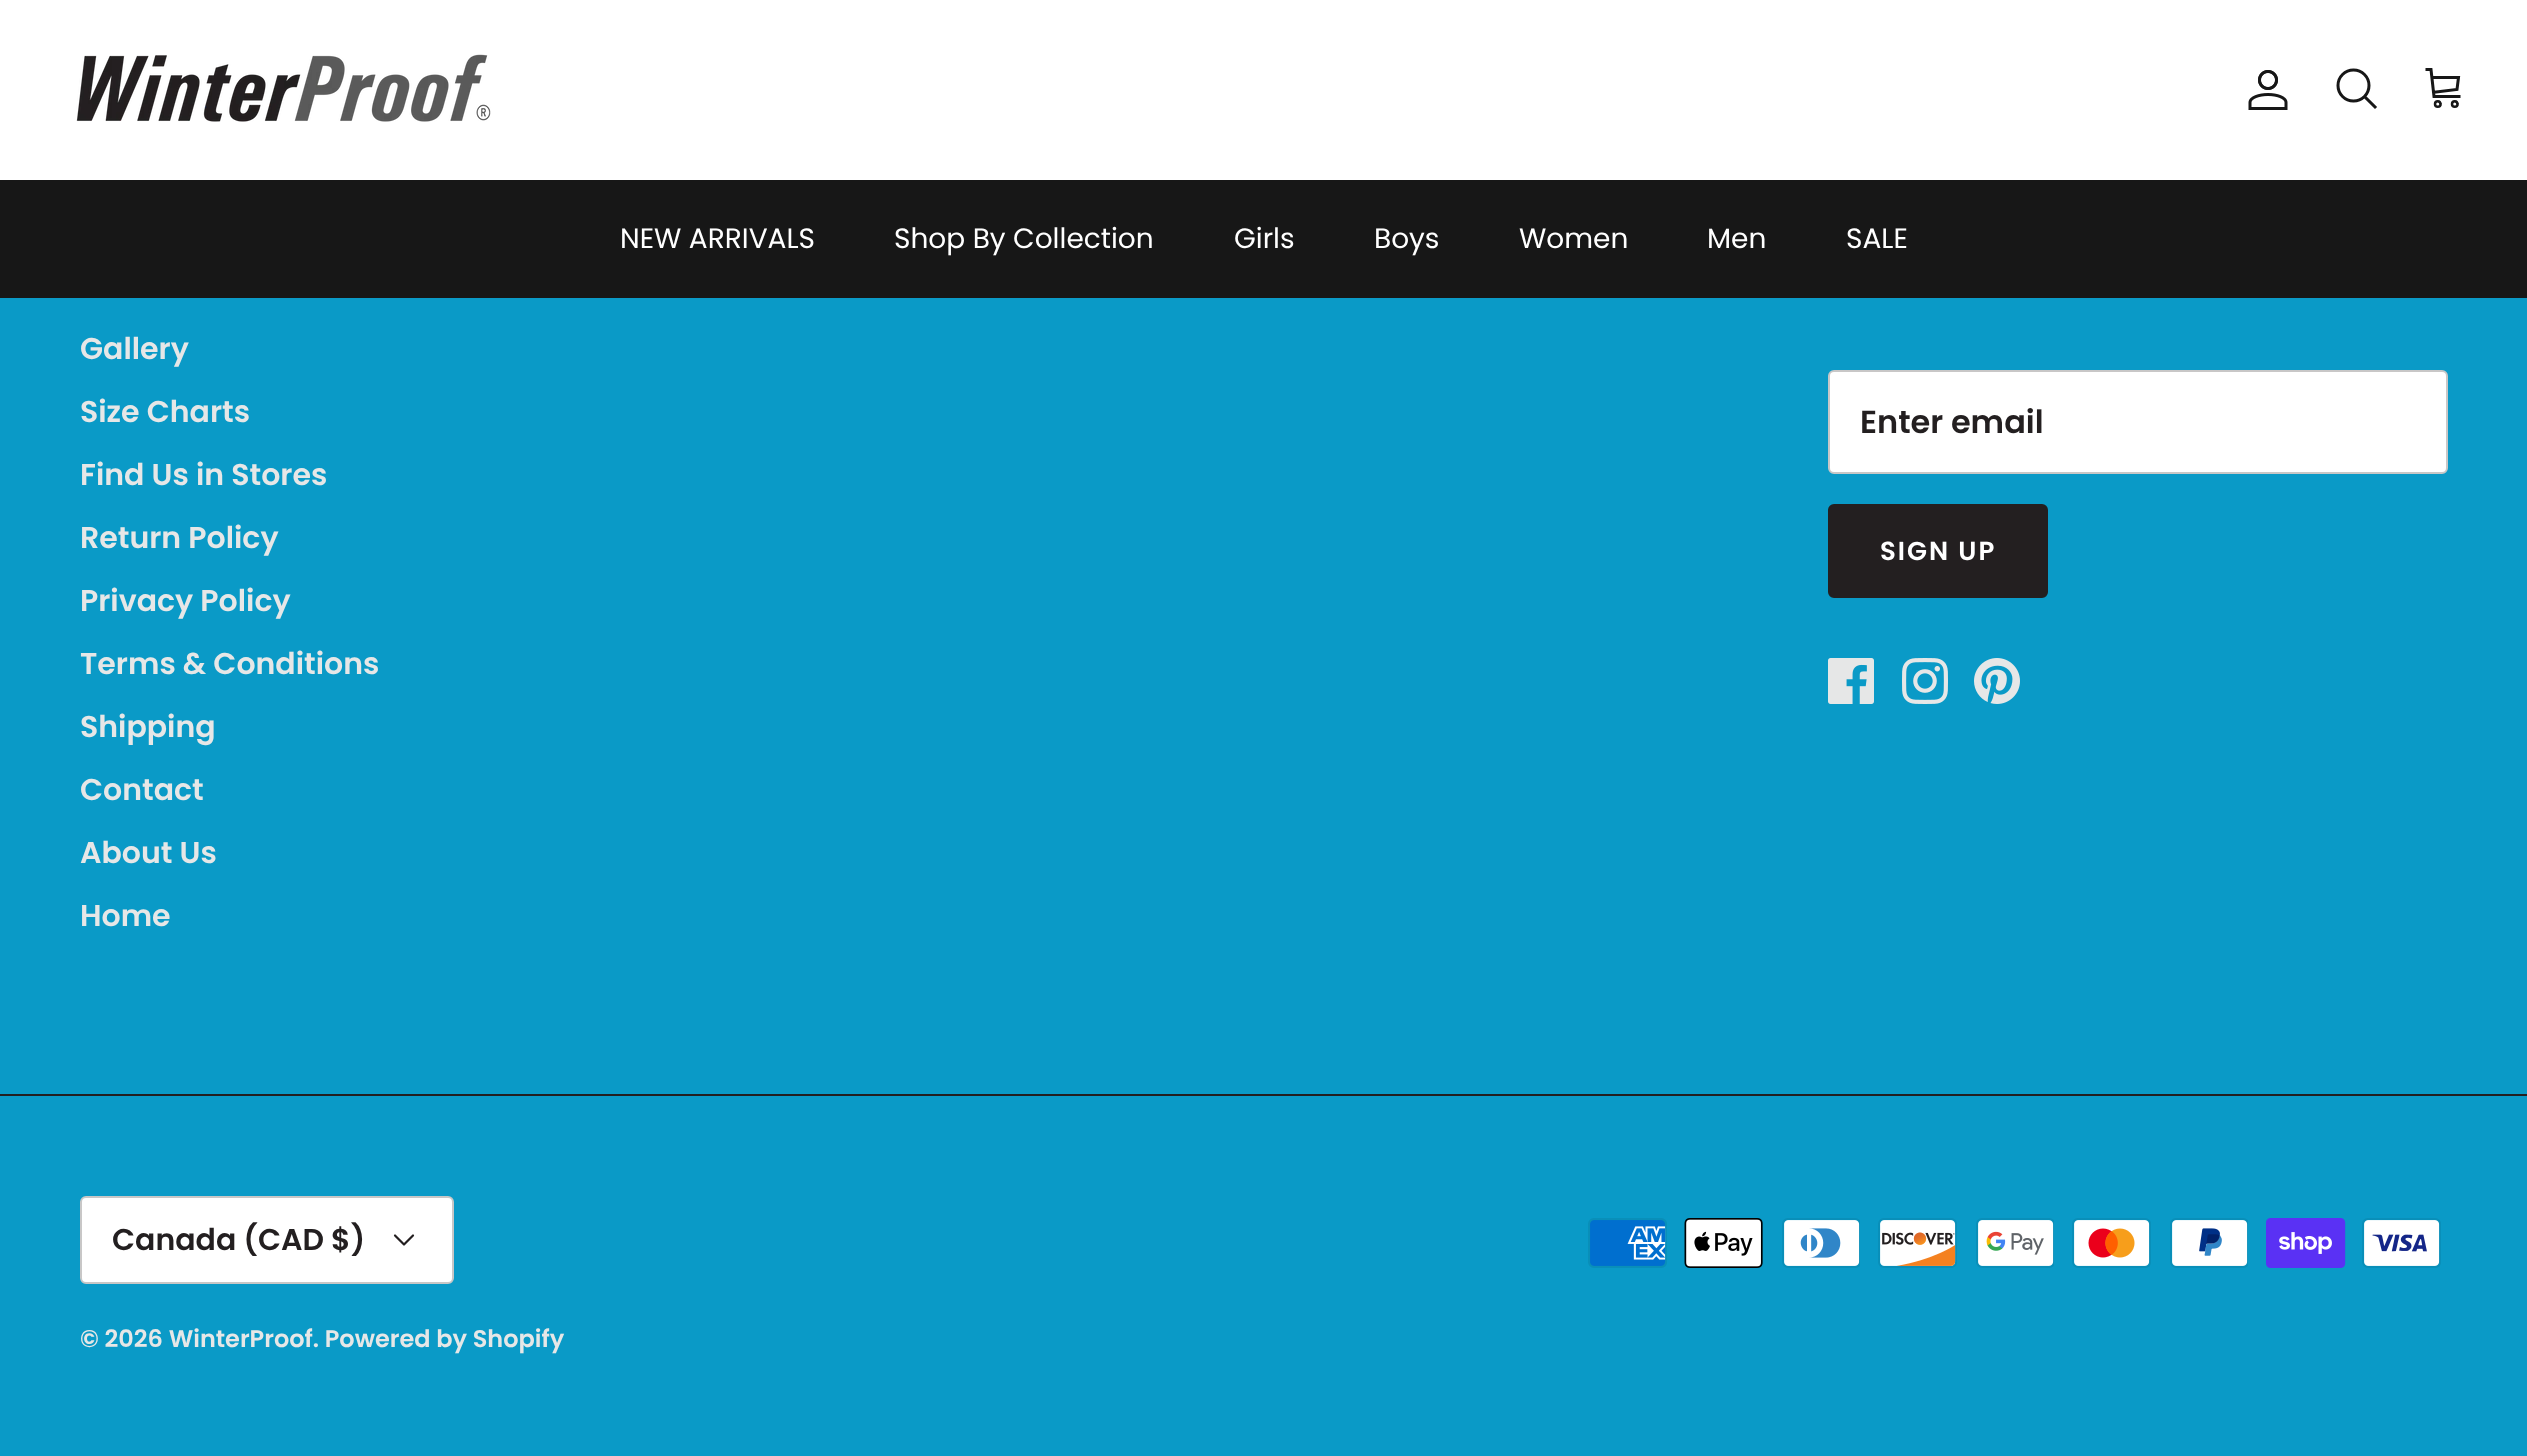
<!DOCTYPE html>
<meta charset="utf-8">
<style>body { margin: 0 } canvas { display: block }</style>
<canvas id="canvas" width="2527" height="1456"></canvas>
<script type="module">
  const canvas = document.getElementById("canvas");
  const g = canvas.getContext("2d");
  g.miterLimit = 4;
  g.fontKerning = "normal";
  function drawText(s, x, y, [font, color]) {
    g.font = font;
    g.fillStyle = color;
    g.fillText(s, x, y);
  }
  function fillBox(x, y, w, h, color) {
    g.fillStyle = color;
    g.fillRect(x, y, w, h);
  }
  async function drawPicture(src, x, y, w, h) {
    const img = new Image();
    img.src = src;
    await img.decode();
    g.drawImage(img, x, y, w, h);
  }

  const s1 = ["28px Poppins", "#FFFFFF"];
  const s2 = ["600 30px Poppins", "#E6E7E7"];
  const s3 = ["600 32px Poppins", "#231F20"];
  const s4 = ["600 26px Poppins", "#FFFFFF"];
  const s5 = ["600 30px Poppins", "#231F20"];
  const s6 = ["600 24px Poppins", "#E6E7E7"];

  fillBox(0, 0, 2527, 1456, "#0A9AC7");
  fillBox(0, 0, 2527, 180, "#FFFFFF");
  await drawPicture("pic1.png", 76, 54, 415, 68);
  await drawPicture("pic2.png", 2248, 70, 40, 40);
  g.beginPath();
  g.arc(2353.5, 85.5, 15.5, 0, Math.PI * 2);
  g.strokeStyle = "#171717";
  g.lineWidth = 3;
  g.stroke();
  g.beginPath();
  g.moveTo(2366, 98);
  g.lineTo(2375, 107);
  g.lineCap = "square";
  g.stroke();
  g.beginPath();
  g.moveTo(2427, 69.5);
  g.lineTo(2431, 69.5);
  g.lineTo(2434, 96.5);
  g.lineTo(2459, 96.5);
  g.moveTo(2432.5, 77.5);
  g.lineTo(2458.5, 77.5);
  g.lineTo(2457, 89.5);
  g.lineTo(2435.5, 92);
  g.stroke();
  g.beginPath();
  g.arc(2437.8, 104, 2.8, 0, Math.PI * 2);
  g.lineWidth = 2.5;
  g.stroke();
  g.beginPath();
  g.arc(2454.8, 104, 2.8, 0, Math.PI * 2);
  g.stroke();
  fillBox(0, 180, 2527, 118, "#171717");
  drawText("NEW ARRIVALS", 620, 248, s1);
  drawText("Shop By Collection", 894, 248, s1);
  drawText("Girls", 1234, 248, s1);
  drawText("Boys", 1374, 248, s1);
  drawText("Women", 1519, 248, s1);
  drawText("Men", 1707, 248, s1);
  drawText("SALE", 1846, 248, s1);
  drawText("Gallery", 80, 359, s2);
  drawText("Size Charts", 80, 422, s2);
  drawText("Find Us in Stores", 80, 485, s2);
  drawText("Return Policy", 80, 548, s2);
  drawText("Privacy Policy", 80, 611, s2);
  drawText("Terms & Conditions", 80, 674, s2);
  drawText("Shipping", 80, 737, s2);
  drawText("Contact", 80, 800, s2);
  drawText("About Us", 80, 863, s2);
  drawText("Home", 80, 926, s2);
  g.fillStyle = "#FFFFFF";
  g.beginPath();
  g.roundRect(1829, 371, 618, 102, 5);
  g.fill();
  g.strokeStyle = "#C8C7C7";
  g.lineWidth = 2;
  g.stroke();
  drawText("Enter email", 1860, 433, s3);
  g.beginPath();
  g.roundRect(1829, 505, 218, 92, 5);
  g.fill();
  g.strokeStyle = "#231F20";
  g.stroke();
  g.letterSpacing = "2px";
  drawText("SIGN UP", 1880, 560, s4);
  await drawPicture("pic3.png", 1828, 658, 46, 46);
  await drawPicture("pic4.png", 1902, 658, 46, 46);
  await drawPicture("pic5.png", 1974, 658, 46, 46);
  fillBox(0, 1094, 2527, 2, "#231F20");
  g.fillStyle = "#FFFFFF";
  g.beginPath();
  g.roundRect(81, 1197, 372, 86, 5);
  g.fill();
  g.strokeStyle = "#C8C7C7";
  g.stroke();
  g.letterSpacing = "0px";
  drawText("Canada (CAD $)", 112, 1250, s5);
  g.beginPath();
  g.moveTo(395, 1235.5);
  g.lineTo(404, 1244.5);
  g.lineTo(413, 1235.5);
  g.strokeStyle = "#231F20";
  g.lineWidth = 2.2;
  g.lineCap = "round";
  g.lineJoin = "round";
  g.stroke();
  drawText("© 2026 WinterProof. Powered by Shopify", 80, 1347, s6);
  await drawPicture("pic6.png", 1588, 1218, 79, 50);
  await drawPicture("pic7.png", 1684, 1218, 79, 50);
  await drawPicture("pic8.png", 1782, 1218, 78, 50);
  await drawPicture("pic9.png", 1878, 1218, 79, 50);
  await drawPicture("pic10.png", 1976, 1218, 78, 50);
  await drawPicture("pic11.png", 2072, 1218, 79, 50);
  await drawPicture("pic12.png", 2170, 1218, 78, 50);
  await drawPicture("pic13.png", 2266, 1218, 80, 50);
  await drawPicture("pic14.png", 2362, 1218, 79, 50);
</script>
